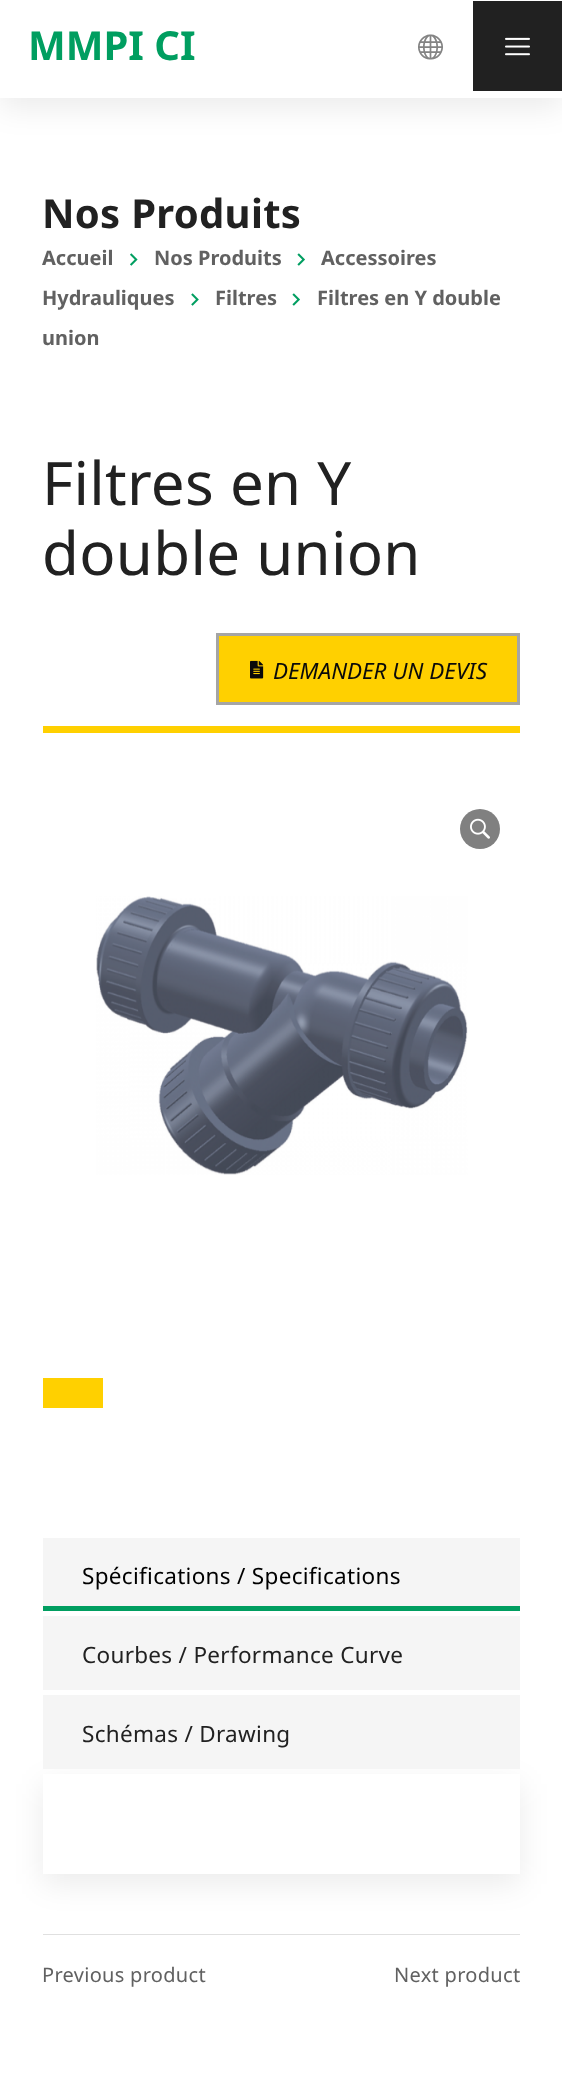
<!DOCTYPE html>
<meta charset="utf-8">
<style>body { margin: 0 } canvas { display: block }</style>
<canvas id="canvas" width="562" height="2074"></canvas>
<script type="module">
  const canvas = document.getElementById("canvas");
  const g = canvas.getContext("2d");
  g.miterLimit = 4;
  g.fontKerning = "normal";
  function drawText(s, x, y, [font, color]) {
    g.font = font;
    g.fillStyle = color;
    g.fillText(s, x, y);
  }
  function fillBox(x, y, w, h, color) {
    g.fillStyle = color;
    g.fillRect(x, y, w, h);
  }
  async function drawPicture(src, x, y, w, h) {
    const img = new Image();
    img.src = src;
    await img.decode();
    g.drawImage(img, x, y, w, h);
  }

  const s1 = ["bold 40px Noto Sans", "#009E60"];
  const s2 = ["25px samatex", "#848484"];
  const s3 = ["bold 40px Noto Sans", "#212121"];
  const s4 = ["bold 20px Noto Sans", "#616161"];
  const s5 = ["60px Noto Sans", "#212121"];
  const s6 = ["italic 22.5px Noto Sans", "#0A0A0A"];
  const s7 = ["22.5px Noto Sans", "#000000"];
  const s8 = ["22.5px Noto Sans", "#212121"];
  const s9 = ["20px Noto Sans", "#616161"];

  fillBox(0, 0, 562, 2074, "#FFFFFF");
  g.save();
  g.beginPath();
  g.moveTo(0, 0);
  g.lineTo(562, 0);
  g.lineTo(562, 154);
  g.lineTo(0, 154);
  g.closePath();
  g.moveTo(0, 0);
  g.lineTo(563, 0);
  g.lineTo(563, 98);
  g.lineTo(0, 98);
  g.closePath();
  g.clip("evenodd");
  g.fillStyle = "rgba(0, 0, 0, 0.08)";
  g.filter = "blur(15px)";
  g.beginPath();
  g.rect(0, 10, 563, 98);
  g.fill();
  g.filter = "none";
  g.restore();
  drawText("MMPI CI", 28, 60, s1);
  drawText("󧀀", 418, 58, s2);
  fillBox(473, 1, 89, 90, "#212121");
  await drawPicture("pic1.png", 505, 37, 25, 19);
  g.letterSpacing = "0.3px";
  drawText("Nos Produits", 42, 228, s3);
  g.letterSpacing = "0px";
  drawText("Accueil", 42, 265, s4);
  await drawPicture("pic2.png", 297, 253, 8, 13);
  drawText("Accessoires", 321, 265, s4);
  drawText("Hydrauliques", 42, 305, s4);
  await drawPicture("pic3.png", 130, 253, 8, 13);
  drawText("Nos Produits", 154, 265, s4);
  await drawPicture("pic2.png", 292, 293, 8, 13);
  drawText("Filtres en Y double", 317, 305, s4);
  drawText("union", 42, 345, s4);
  await drawPicture("pic4.png", 191, 293, 8, 13);
  drawText("Filtres", 215, 305, s4);
  g.letterSpacing = "0.3px";
  drawText("Filtres en Y", 42, 505, s5);
  drawText("double union", 42, 575, s5);
  g.fillStyle = "#FFD000";
  g.beginPath();
  g.rect(217.5, 634.5, 301, 69);
  g.fill();
  g.strokeStyle = "#A5A5A5";
  g.lineWidth = 3;
  g.stroke();
  await drawPicture("pic5.png", 250, 660, 14, 19);
  g.letterSpacing = "0px";
  drawText("DEMANDER UN DEVIS", 273, 679, s6);
  fillBox(43, 726, 477, 7, "#FFD000");
  g.fillStyle = "#808080";
  g.beginPath();
  g.arc(480, 829, 20, 0, Math.PI * 2);
  g.fill();
  await drawPicture("pic6.png", 470, 818, 20, 21);
  await drawPicture("pic7.png", 96, 896, 372, 279);
  fillBox(43, 1378, 60, 30, "#FFD000");
  fillBox(43, 1538, 477, 68, "#F5F5F5");
  g.letterSpacing = "0.3px";
  drawText("Spécifications / Specifications", 82, 1584, s7);
  fillBox(43, 1606, 477, 5, "#009E60");
  fillBox(43, 1616, 477, 74, "#F5F5F5");
  drawText("Courbes / Performance Curve", 82, 1663, s8);
  g.fillStyle = "rgba(0, 0, 0, 0.08)";
  g.filter = "blur(15px)";
  g.beginPath();
  g.rect(43, 1784, 477, 100);
  g.fill();
  g.filter = "none";
  fillBox(43, 1695, 477, 74, "#F5F5F5");
  drawText("Schémas / Drawing", 82, 1742, s8);
  fillBox(43, 1774, 477, 100, "#FFFFFF");
  fillBox(43, 1934, 477, 1, "#E0E0E0");
  drawText("Previous product", 42, 1982, s9);
  drawText("Next product", 394, 1982, s9);
</script>
